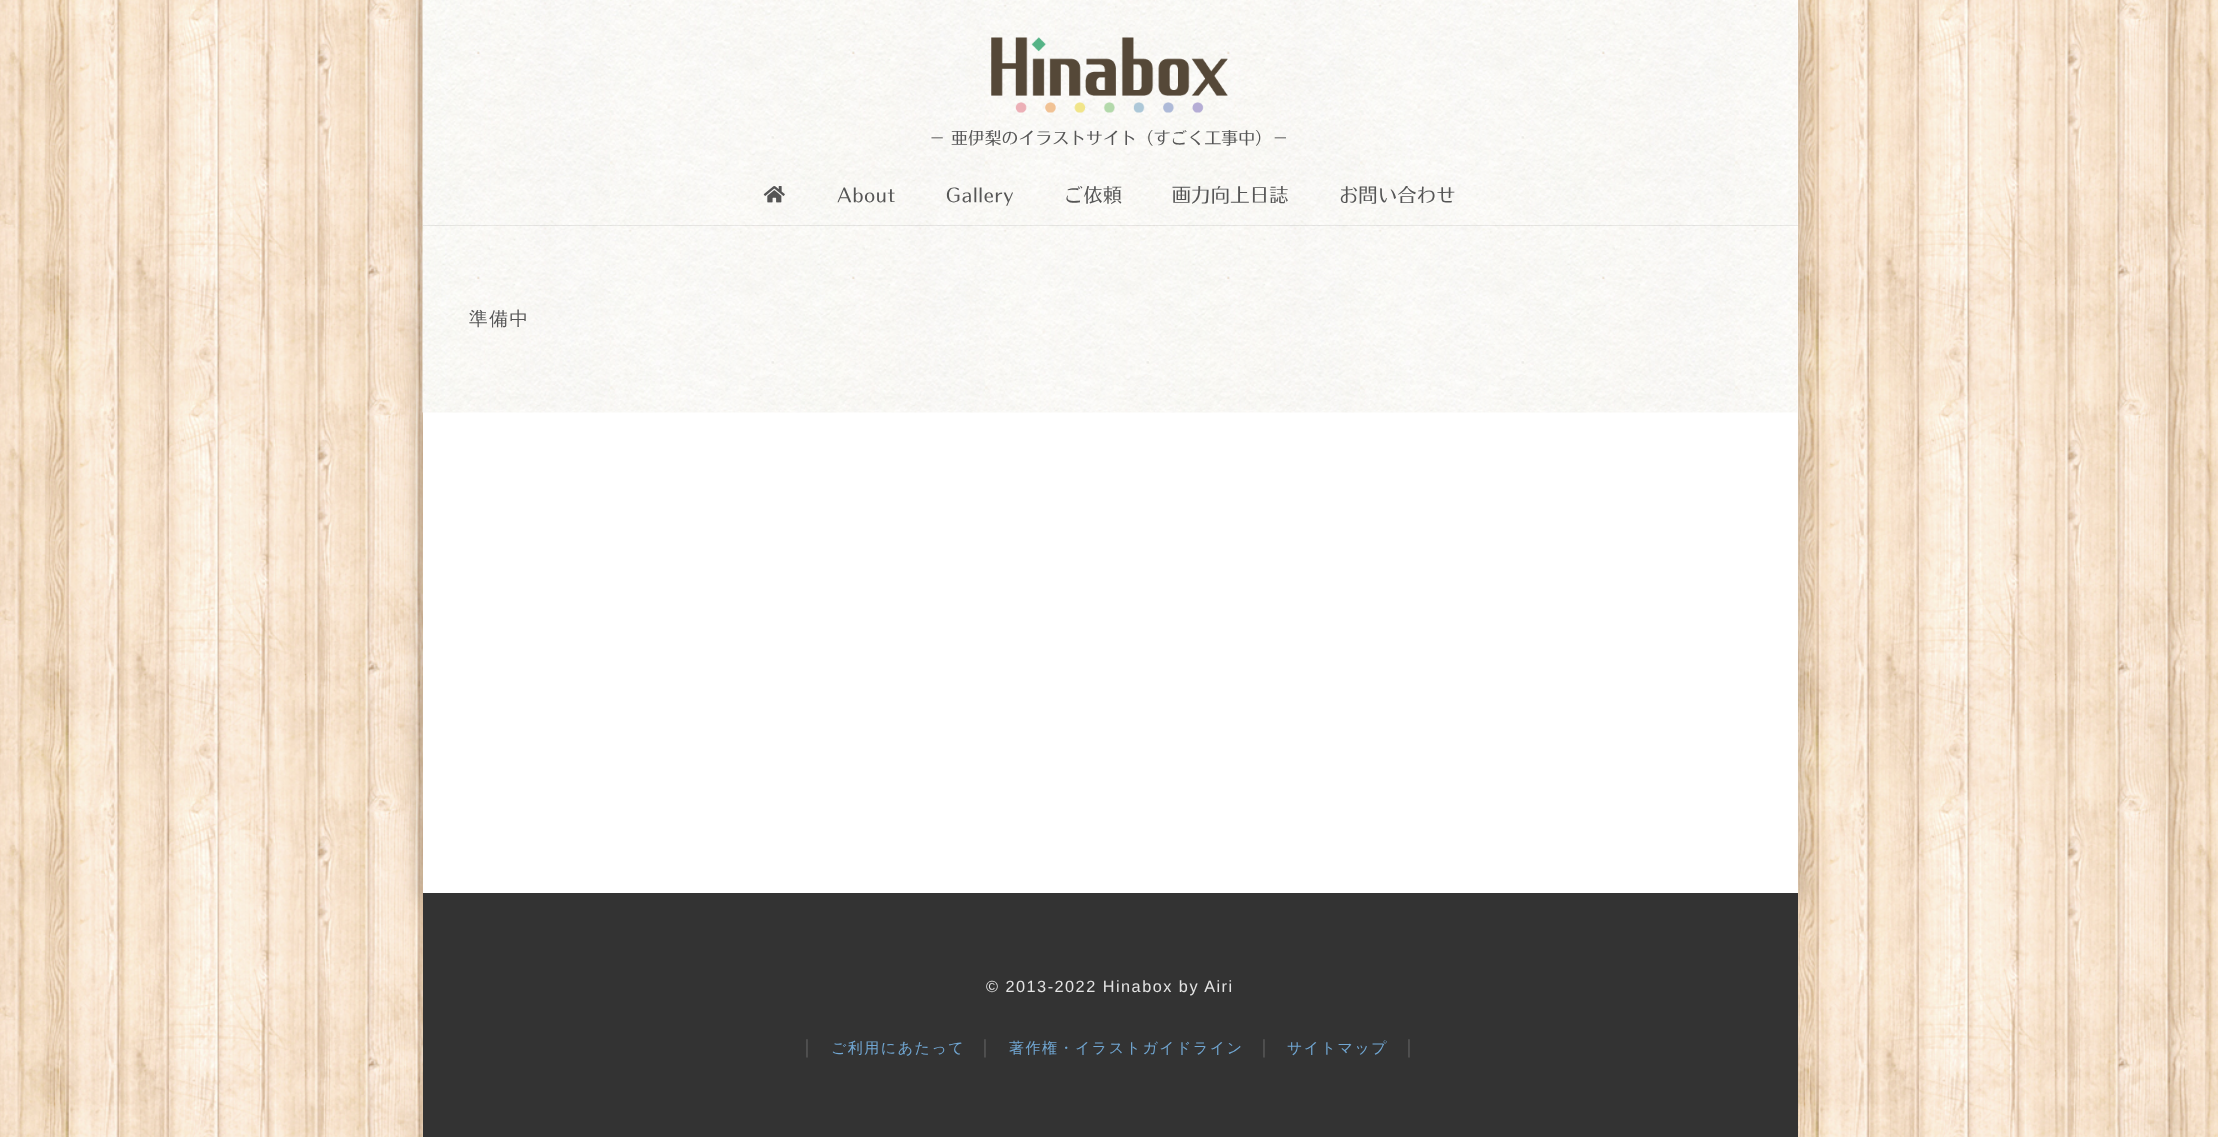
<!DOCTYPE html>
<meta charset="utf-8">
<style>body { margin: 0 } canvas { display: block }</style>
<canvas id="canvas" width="2218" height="1137"></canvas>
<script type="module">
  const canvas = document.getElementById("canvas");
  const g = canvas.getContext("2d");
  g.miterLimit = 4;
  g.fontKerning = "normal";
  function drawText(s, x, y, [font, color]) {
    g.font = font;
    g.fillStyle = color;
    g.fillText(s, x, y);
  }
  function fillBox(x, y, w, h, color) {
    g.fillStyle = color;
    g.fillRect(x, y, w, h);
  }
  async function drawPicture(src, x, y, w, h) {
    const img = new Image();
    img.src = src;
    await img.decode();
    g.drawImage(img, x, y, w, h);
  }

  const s1 = ["16.25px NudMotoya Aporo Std", "#555555"];
  const s2 = ["18.75px NudMotoya Aporo Std", "#555555"];
  const s3 = ["500 18.75px WenQuanYi Zen Hei", "#555555"];
  const s4 = ["16.25px Liberation Sans", "#E3E3E3"];
  const s5 = ["15px Liberation Sans", "#666666"];
  const s6 = ["500 15px WenQuanYi Zen Hei", "#71A7D3"];

  fillBox(0, 0, 2218, 1137, "#FFFFFF");
  await drawPicture("pic1.png", 0, 0, 2218, 1137);
  g.fillStyle = "rgba(0, 0, 0, 0.1)";
  g.filter = "blur(8px)";
  g.beginPath();
  g.rect(416, -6, 1388, 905);
  g.fill();
  g.filter = "none";
  fillBox(423, 0, 1375, 893, "#FFFFFF");
  await drawPicture("pic5.png", 422, 225, 1376, 188);
  g.fillStyle = "rgba(0, 0, 0, 0.08)";
  g.beginPath();
  g.moveTo(423, 225);
  g.lineTo(423, 226);
  g.lineTo(1798, 226);
  g.lineTo(1798, 1);
  g.lineTo(1798, 225);
  g.closePath();
  g.fill();
  await drawPicture("pic2.png", 422, 0, 1376, 225);
  await drawPicture("pic3.png", 991, 37, 237, 76);
  g.letterSpacing = "0.65px";
  drawText("－ 亜伊梨のイラストサイト（すごく工事中）－", 929, 144, s1);
  await drawPicture("pic4.png", 763, 186, 22, 17);
  g.letterSpacing = "0.75px";
  drawText("About", 837, 202, s2);
  drawText("Gallery", 946, 202, s2);
  drawText("ご依頼", 1064, 202, s2);
  drawText("画力向上日誌", 1172, 202, s2);
  drawText("お問い合わせ", 1339, 202, s2);
  g.letterSpacing = "1.5px";
  drawText("準備中", 469, 325, s3);
  fillBox(423, 893, 1375, 244, "#333333");
  drawText("© 2013-2022 Hinabox by Airi", 986, 992, s4);
  drawText("│", 803, 1053, s5);
  drawText("ご利用にあたって", 831, 1053, s6);
  drawText("│", 981, 1053, s5);
  drawText("著作権・イラストガイドライン", 1009, 1053, s6);
  drawText("│", 1260, 1053, s5);
  drawText("サイトマップ", 1287, 1053, s6);
  drawText("│", 1405, 1053, s5);
</script>
